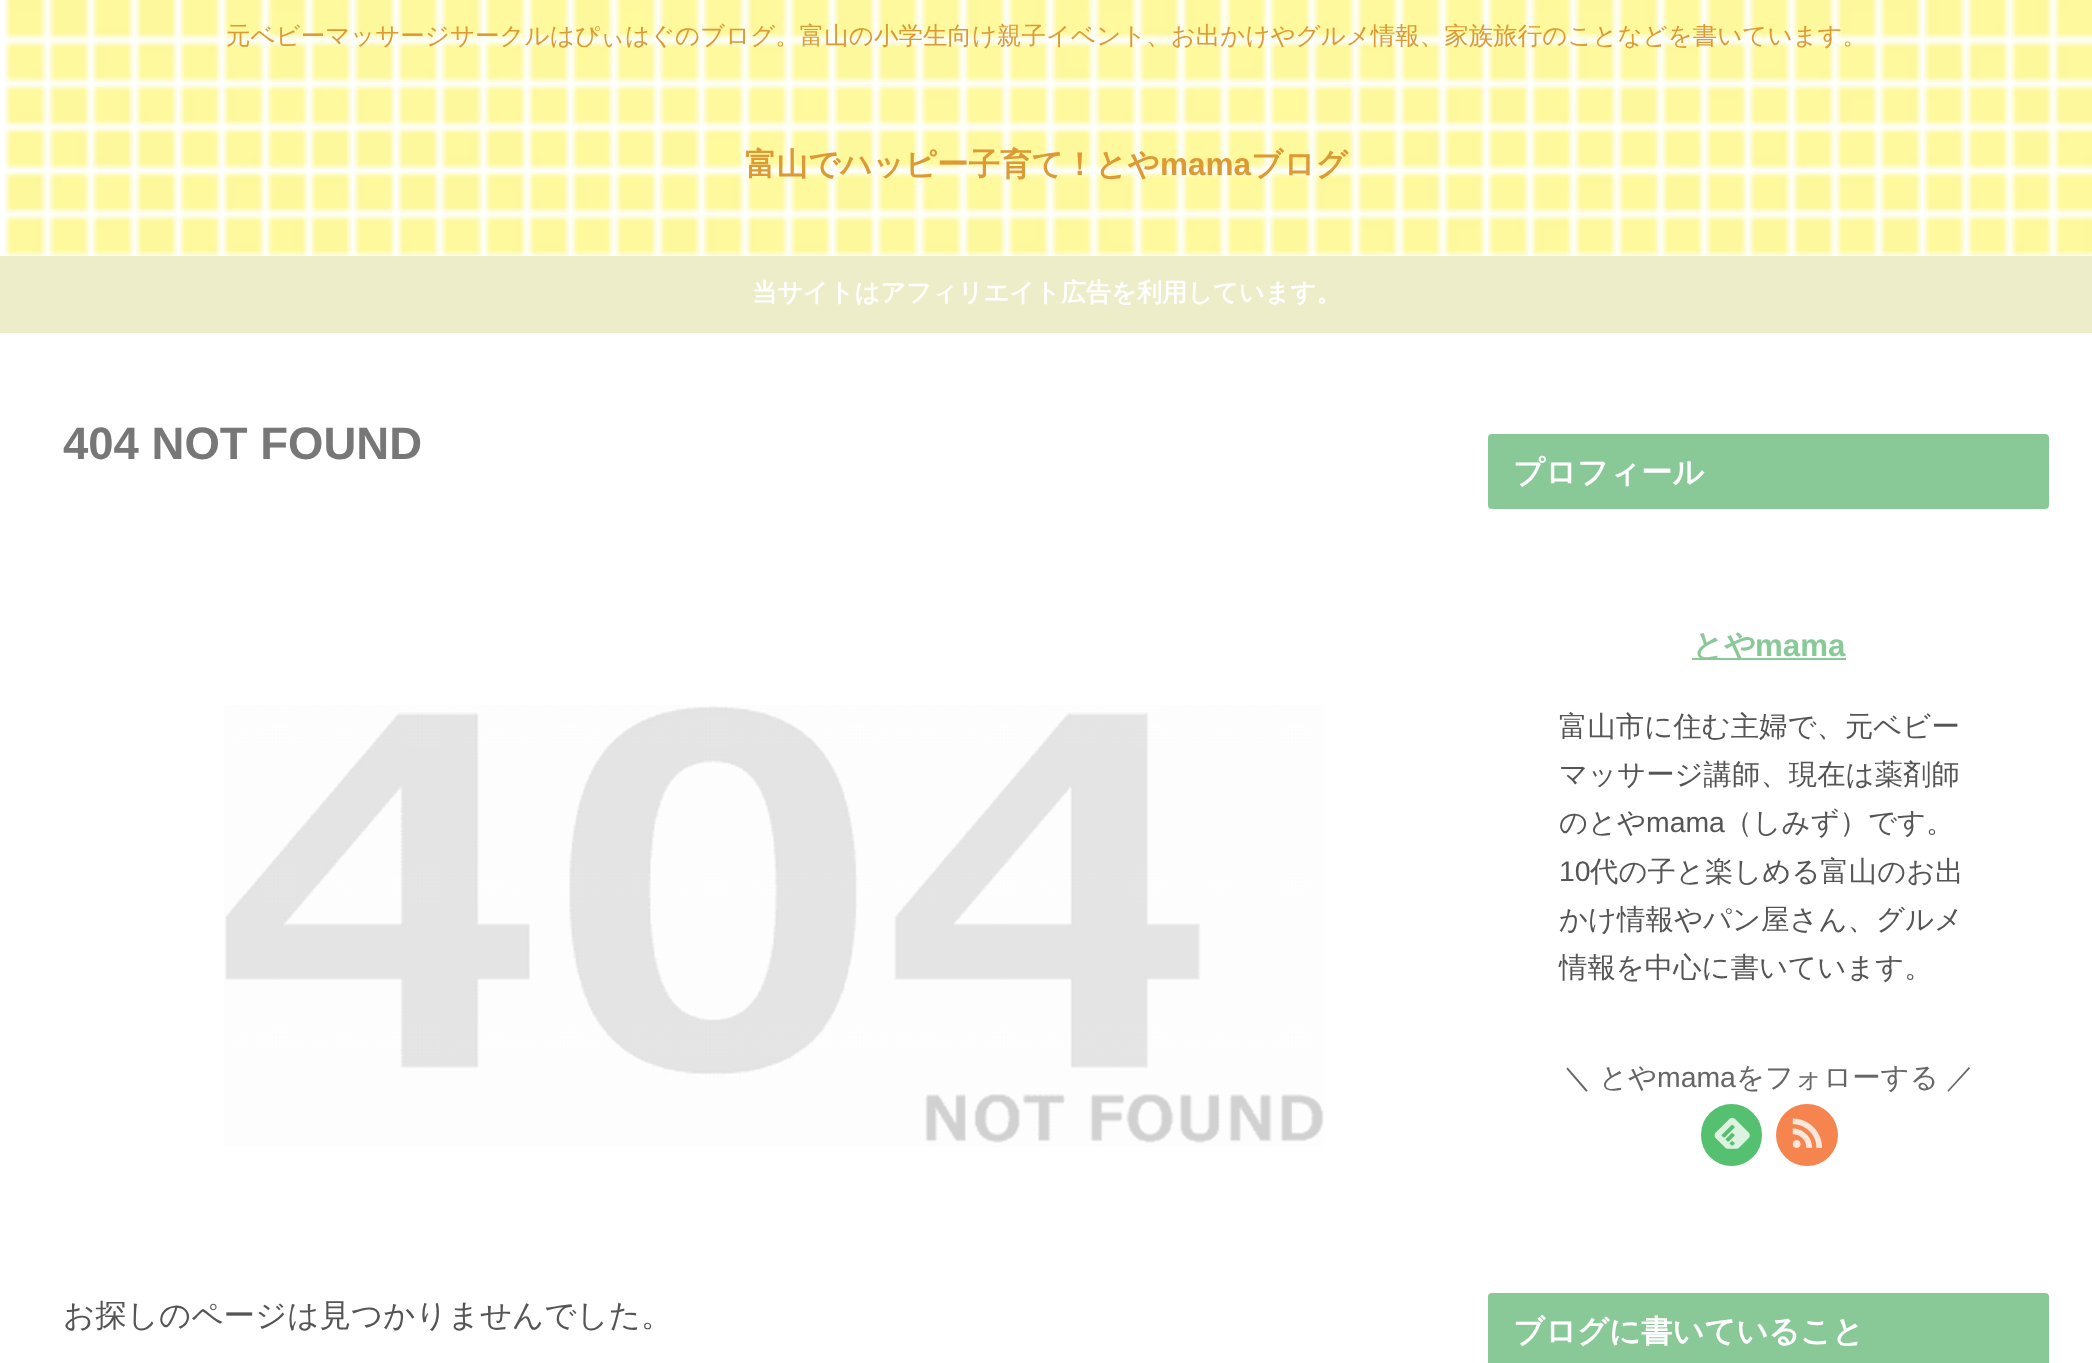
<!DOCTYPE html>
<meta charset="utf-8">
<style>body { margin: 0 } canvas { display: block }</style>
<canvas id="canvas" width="2092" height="1363"></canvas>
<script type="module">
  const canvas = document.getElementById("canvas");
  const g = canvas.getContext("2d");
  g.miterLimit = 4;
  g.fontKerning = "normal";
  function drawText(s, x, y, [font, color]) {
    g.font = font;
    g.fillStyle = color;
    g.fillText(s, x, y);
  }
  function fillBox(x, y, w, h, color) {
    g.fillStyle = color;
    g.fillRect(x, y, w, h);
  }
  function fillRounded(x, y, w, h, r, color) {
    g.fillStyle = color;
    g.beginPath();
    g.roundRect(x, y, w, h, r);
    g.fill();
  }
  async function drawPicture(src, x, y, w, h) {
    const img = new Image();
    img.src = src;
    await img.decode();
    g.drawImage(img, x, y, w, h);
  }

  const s1 = ["500 24.5px WenQuanYi Zen Hei", "#DD9933"];
  const s2 = ["bold 31.5px WenQuanYi Zen Hei", "#DD9933"];
  const s3 = ["bold 31.5px Liberation Sans", "#DD9933"];
  const s4 = ["bold 25.2px WenQuanYi Zen Hei", "#FFFFFF"];
  const s5 = ["bold 45.5px Liberation Sans", "#777777"];
  const s6 = ["500 31.5px WenQuanYi Zen Hei", "#555555"];
  const s7 = ["bold 31.25px WenQuanYi Zen Hei", "#FFFFFF"];
  const s8 = ["bold 31.25px WenQuanYi Zen Hei", "#89C997"];
  const s9 = ["bold 31.25px Liberation Sans", "#89C997"];
  const s10 = ["500 28.4px WenQuanYi Zen Hei", "#555555"];
  const s11 = ["28.4px Liberation Sans", "#555555"];
  const s12 = ["500 28.4px WenQuanYi Zen Hei", "#666666"];
  const s13 = ["28.4px Liberation Sans", "#666666"];

  fillBox(0, 0, 2092, 1363, "#FFFFFF");
  await drawPicture("pic1.png", 4, 0, 2088, 256);
  drawText("元ベビーマッサージサークルはぴぃはぐのブログ。富山の小学生向け親子イベント、お出かけやグルメ情報、家族旅行のことなどを書いています。", 226, 44, s1);
  drawText("富山でハッピー子育て！とや", 745, 175, s2);
  drawText("mama", 1160, 175, s3);
  drawText("ブログ", 1251, 175, s2);
  fillBox(0, 256, 2092, 77, "#EDEDC9");
  drawText("当サイトはアフィリエイト広告を利用しています。", 752, 301, s4);
  drawText("404 NOT FOUND", 63, 459, s5);
  await drawPicture("pic2.png", 224, 705, 1100, 442);
  drawText("お探しのページは見つかりませんでした。", 63, 1326, s6);
  fillRounded(1488, 434, 561, 75, 4, "#89C997");
  drawText("プロフィール", 1513, 483, s7);
  fillBox(1692, 658, 154, 2, "#89C997");
  drawText("とや", 1692, 656, s8);
  drawText("mama", 1755, 656, s9);
  drawText("富山市に住む主婦で、元ベビー", 1559, 736, s10);
  drawText("マッサージ講師、現在は薬剤師", 1559, 784, s10);
  drawText("のとや", 1559, 832, s10);
  drawText("mama", 1646, 832, s11);
  drawText("（しみず）です。", 1724, 832, s10);
  drawText("10", 1559, 881, s11);
  drawText("代の子と楽しめる富山のお出", 1590, 881, s10);
  drawText("かけ情報やパン屋さん、グルメ", 1559, 929, s10);
  drawText("情報を中心に書いています。", 1559, 977, s10);
  drawText("＼", 1563, 1087, s12);
  drawText("とや", 1599, 1087, s12);
  drawText("mama", 1657, 1087, s13);
  drawText("をフォローする", 1736, 1087, s12);
  drawText("／", 1946, 1087, s12);
  fillRounded(1701, 1104, 61, 62, 30.5, "#55C170");
  await drawPicture("pic3.png", 1714, 1117, 36, 32);
  g.fillStyle = "#F5844E";
  g.beginPath();
  g.arc(1807, 1135, 31, 0, Math.PI * 2);
  g.fill();
  await drawPicture("pic4.png", 1792, 1118, 30, 30);
  fillRounded(1488, 1293, 561, 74, 4, "#89C997");
  drawText("ブログに書いていること", 1513, 1342, s7);
</script>
